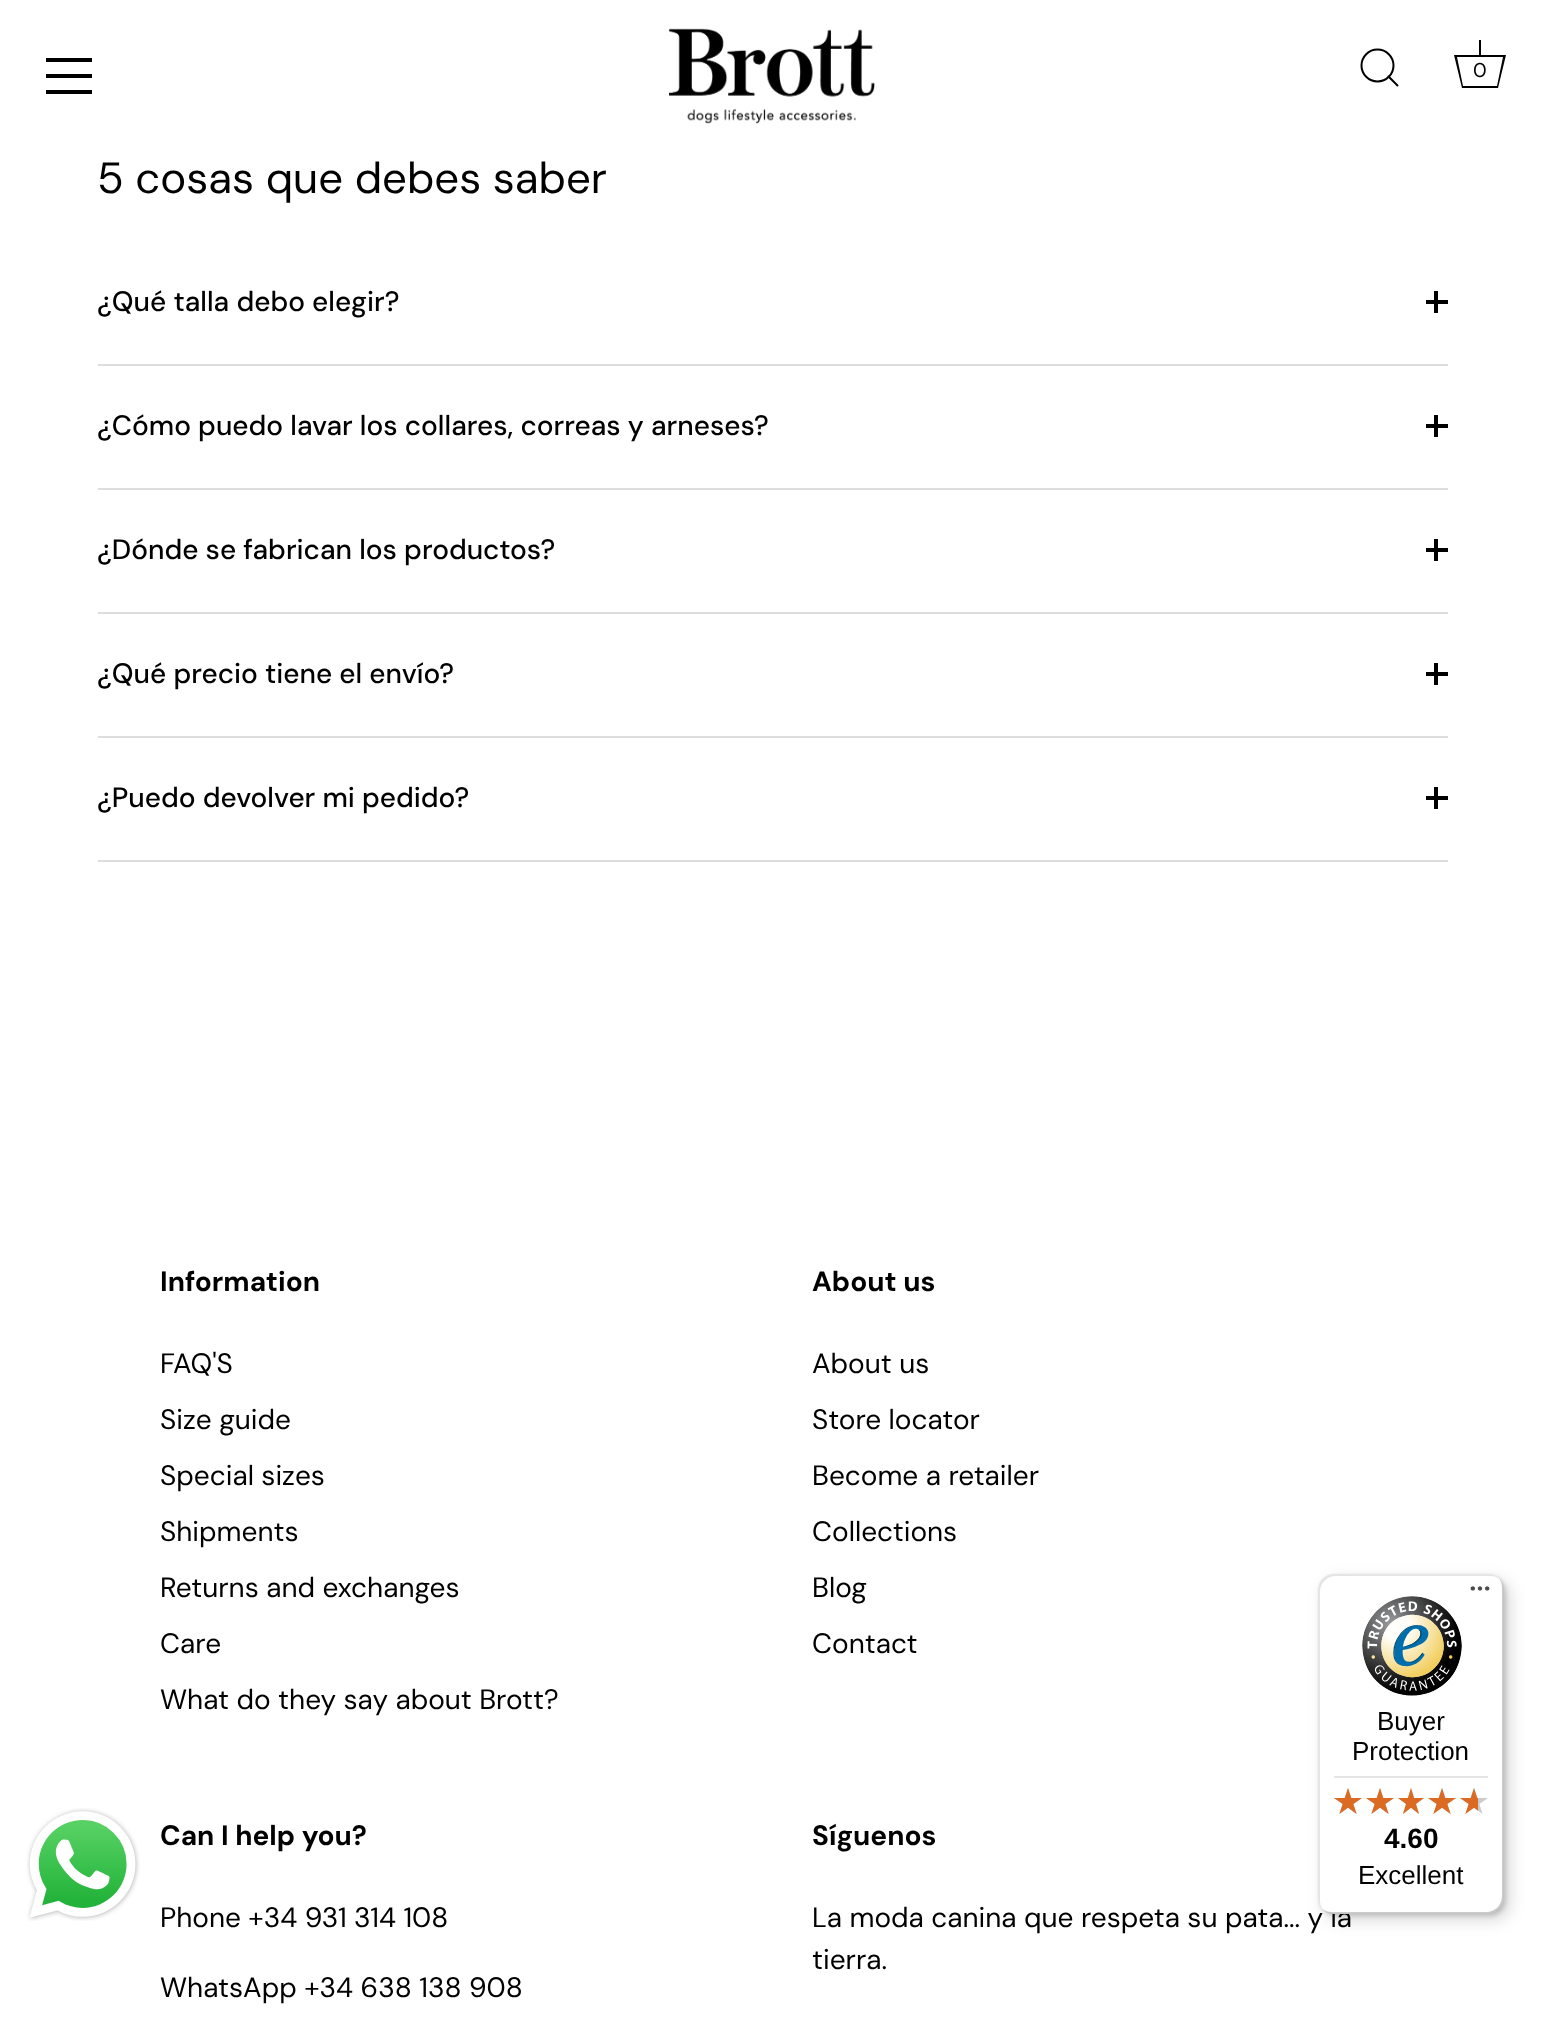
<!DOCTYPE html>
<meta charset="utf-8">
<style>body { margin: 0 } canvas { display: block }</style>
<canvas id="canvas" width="1544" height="2022"></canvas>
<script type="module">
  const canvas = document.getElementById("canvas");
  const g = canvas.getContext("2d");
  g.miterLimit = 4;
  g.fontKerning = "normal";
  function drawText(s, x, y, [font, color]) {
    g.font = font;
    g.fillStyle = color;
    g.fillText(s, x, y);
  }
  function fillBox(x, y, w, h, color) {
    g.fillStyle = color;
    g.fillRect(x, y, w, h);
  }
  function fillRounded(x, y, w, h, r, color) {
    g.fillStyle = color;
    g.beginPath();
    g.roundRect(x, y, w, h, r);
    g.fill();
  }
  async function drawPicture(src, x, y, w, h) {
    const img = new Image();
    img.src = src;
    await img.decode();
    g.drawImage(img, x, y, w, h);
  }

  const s1 = ["20px DM Sans", "#000000"];
  const s2 = ["43.75px DM Sans", "#000000"];
  const s3 = ["500 28px DM Sans", "#000000"];
  const s4 = ["bold 28px DM Sans", "#000000"];
  const s5 = ["28px DM Sans", "#000000"];
  const s6 = ["26px Liberation Sans", "#000000"];
  const s7 = ["bold 28px Liberation Sans", "#000000"];

  fillBox(0, 0, 1544, 2022, "#FFFFFF");
  fillBox(46, 58, 46, 4, "#000000");
  fillBox(46, 74, 46, 4, "#000000");
  fillBox(46, 90, 46, 4, "#000000");
  await drawPicture("pic1.png", 669, 28, 206, 96);
  g.beginPath();
  g.arc(1377.5, 65.5, 16, 0, Math.PI * 2);
  g.strokeStyle = "#000000";
  g.lineWidth = 2;
  g.stroke();
  g.beginPath();
  g.moveTo(1397.5, 85.5);
  g.lineTo(1388.5, 76.5);
  g.lineCap = "round";
  g.lineJoin = "round";
  g.stroke();
  fillBox(1479, 40, 2, 15, "#000000");
  g.beginPath();
  g.moveTo(1503, 57);
  g.lineTo(1497, 86);
  g.lineTo(1463, 86);
  g.lineTo(1457, 57);
  g.lineTo(1503, 57);
  g.moveTo(1506, 55);
  g.lineTo(1454, 55);
  g.lineTo(1462, 88);
  g.lineTo(1498, 88);
  g.closePath();
  g.fill();
  drawText("0", 1473, 77, s1);
  drawText("5 cosas que debes saber", 97, 193, s2);
  fillBox(98, 364, 1350, 2, "#DDDDDD");
  drawText("¿Qué talla debo elegir?", 97, 311, s3);
  fillBox(1434, 291, 4, 22, "#000000");
  fillBox(1426, 300, 22, 4, "#000000");
  fillBox(98, 488, 1350, 2, "#DDDDDD");
  drawText("¿Cómo puedo lavar los collares, correas y arneses?", 97, 435, s3);
  fillBox(1434, 415, 4, 22, "#000000");
  fillBox(1426, 424, 22, 4, "#000000");
  fillBox(98, 612, 1350, 2, "#DDDDDD");
  drawText("¿Dónde se fabrican los productos?", 97, 559, s3);
  fillBox(1434, 539, 4, 22, "#000000");
  fillBox(1426, 548, 22, 4, "#000000");
  fillBox(98, 736, 1350, 2, "#DDDDDD");
  drawText("¿Qué precio tiene el envío?", 97, 683, s3);
  fillBox(1434, 663, 4, 22, "#000000");
  fillBox(1426, 672, 22, 4, "#000000");
  fillBox(98, 860, 1350, 2, "#DDDDDD");
  drawText("¿Puedo devolver mi pedido?", 97, 807, s3);
  fillBox(1434, 787, 4, 22, "#000000");
  fillBox(1426, 796, 22, 4, "#000000");
  await drawPicture("pic2.png", 26, 1808, 114, 113);
  drawText("Information", 160, 1291, s4);
  drawText("FAQ'S", 160, 1373, s5);
  drawText("Size guide", 160, 1429, s5);
  drawText("Special sizes", 160, 1485, s5);
  drawText("Shipments", 160, 1541, s5);
  drawText("Returns and exchanges", 160, 1597, s5);
  drawText("Care", 160, 1653, s5);
  drawText("What do they say about Brott?", 160, 1709, s5);
  drawText("About us", 812, 1291, s4);
  drawText("About us", 812, 1373, s5);
  drawText("Store locator", 812, 1429, s5);
  drawText("Become a retailer", 812, 1485, s5);
  drawText("Collections", 812, 1541, s5);
  drawText("Blog", 812, 1597, s5);
  drawText("Contact", 812, 1653, s5);
  drawText("Can I help you?", 160, 1845, s4);
  drawText("Phone +34 931 314 108", 160, 1927, s5);
  drawText("WhatsApp +34 638 138 908", 160, 1997, s5);
  drawText("Síguenos", 812, 1845, s4);
  drawText("La moda canina que respeta su pata... y la", 812, 1927, s5);
  drawText("tierra.", 812, 1969, s5);
  g.fillStyle = "rgba(0, 0, 0, 0.15)";
  g.filter = "blur(8px)";
  g.beginPath();
  g.roundRect(1324, 1580, 186, 340, 16);
  g.fill();
  g.filter = "none";
  g.filter = "blur(2px)";
  g.beginPath();
  g.roundRect(1320, 1576, 186, 340, 16);
  g.fill();
  g.filter = "none";
  fillRounded(1318, 1574, 186, 340, 16, "#FFFFFF");
  g.fillStyle = "rgba(0, 0, 0, 0.1)";
  g.beginPath();
  g.moveTo(1336, 1576);
  g.lineTo(1490, 1576);
  g.bezierCurveTo(1494, 1576, 1497, 1577, 1500, 1579);
  g.bezierCurveTo(1497, 1576, 1493, 1574, 1488, 1574);
  g.lineTo(1334, 1574);
  g.bezierCurveTo(1325, 1574, 1318, 1581, 1318, 1590);
  g.lineTo(1318, 1898);
  g.bezierCurveTo(1318, 1903, 1320, 1907, 1323, 1910);
  g.bezierCurveTo(1321, 1907, 1320, 1904, 1320, 1900);
  g.lineTo(1320, 1592);
  g.bezierCurveTo(1320, 1583, 1327, 1576, 1336, 1576);
  g.closePath();
  g.fill();
  g.fillStyle = "rgba(0, 0, 0, 0.2)";
  g.beginPath();
  g.moveTo(1322, 1909);
  g.bezierCurveTo(1325, 1912, 1329, 1914, 1334, 1914);
  g.lineTo(1488, 1914);
  g.bezierCurveTo(1497, 1914, 1504, 1907, 1504, 1898);
  g.lineTo(1504, 1590);
  g.bezierCurveTo(1504, 1585, 1502, 1581, 1499, 1578);
  g.bezierCurveTo(1501, 1581, 1502, 1584, 1502, 1588);
  g.lineTo(1502, 1896);
  g.bezierCurveTo(1502, 1905, 1495, 1912, 1486, 1912);
  g.lineTo(1332, 1912);
  g.bezierCurveTo(1328, 1912, 1325, 1911, 1322, 1909);
  g.closePath();
  g.fill();
  g.fillStyle = "rgba(50, 50, 50, 0.2)";
  g.beginPath();
  g.moveTo(1323, 1909);
  g.bezierCurveTo(1326, 1912, 1330, 1914, 1334, 1914);
  g.lineTo(1488, 1914);
  g.bezierCurveTo(1497, 1914, 1504, 1907, 1504, 1898);
  g.lineTo(1504, 1590);
  g.bezierCurveTo(1504, 1586, 1502, 1582, 1499, 1579);
  g.bezierCurveTo(1502, 1582, 1503, 1585, 1503, 1589);
  g.lineTo(1503, 1897);
  g.bezierCurveTo(1503, 1906, 1496, 1913, 1487, 1913);
  g.lineTo(1333, 1913);
  g.bezierCurveTo(1329, 1913, 1326, 1912, 1323, 1909);
  g.closePath();
  g.fill();
  g.fillStyle = "rgba(255, 255, 255, 0.3)";
  g.beginPath();
  g.moveTo(1323, 1909);
  g.bezierCurveTo(1326, 1912, 1330, 1914, 1334, 1914);
  g.lineTo(1488, 1914);
  g.bezierCurveTo(1497, 1914, 1504, 1907, 1504, 1898);
  g.lineTo(1504, 1590);
  g.bezierCurveTo(1504, 1586, 1502, 1582, 1499, 1579);
  g.bezierCurveTo(1502, 1582, 1503, 1585, 1503, 1589);
  g.lineTo(1503, 1897);
  g.bezierCurveTo(1503, 1906, 1496, 1913, 1487, 1913);
  g.lineTo(1333, 1913);
  g.bezierCurveTo(1329, 1913, 1326, 1912, 1323, 1909);
  g.closePath();
  g.fill();
  await drawPicture("pic3.png", 1470, 1586, 20, 5);
  await drawPicture("pic4.png", 1362, 1596, 100, 100);
  drawText("Buyer", 1377, 1730, s6);
  drawText("Protection", 1352, 1760, s6);
  fillBox(1334, 1776, 154, 2, "#E5E5E5");
  await drawPicture("pic5.png", 1334, 1788, 28, 26);
  await drawPicture("pic5.png", 1366, 1788, 28, 26);
  await drawPicture("pic6.png", 1398, 1788, 26, 26);
  await drawPicture("pic5.png", 1428, 1788, 28, 26);
  await drawPicture("pic5.png", 1460, 1788, 28, 26);
  await drawPicture("pic7.png", 1334, 1788, 28, 26);
  await drawPicture("pic7.png", 1366, 1788, 28, 26);
  await drawPicture("pic8.png", 1398, 1788, 26, 26);
  await drawPicture("pic7.png", 1428, 1788, 28, 26);
  await drawPicture("pic9.png", 1460, 1788, 18, 26);
  drawText("4.60", 1384, 1848, s7);
  drawText("Excellent", 1358, 1884, s6);
</script>
